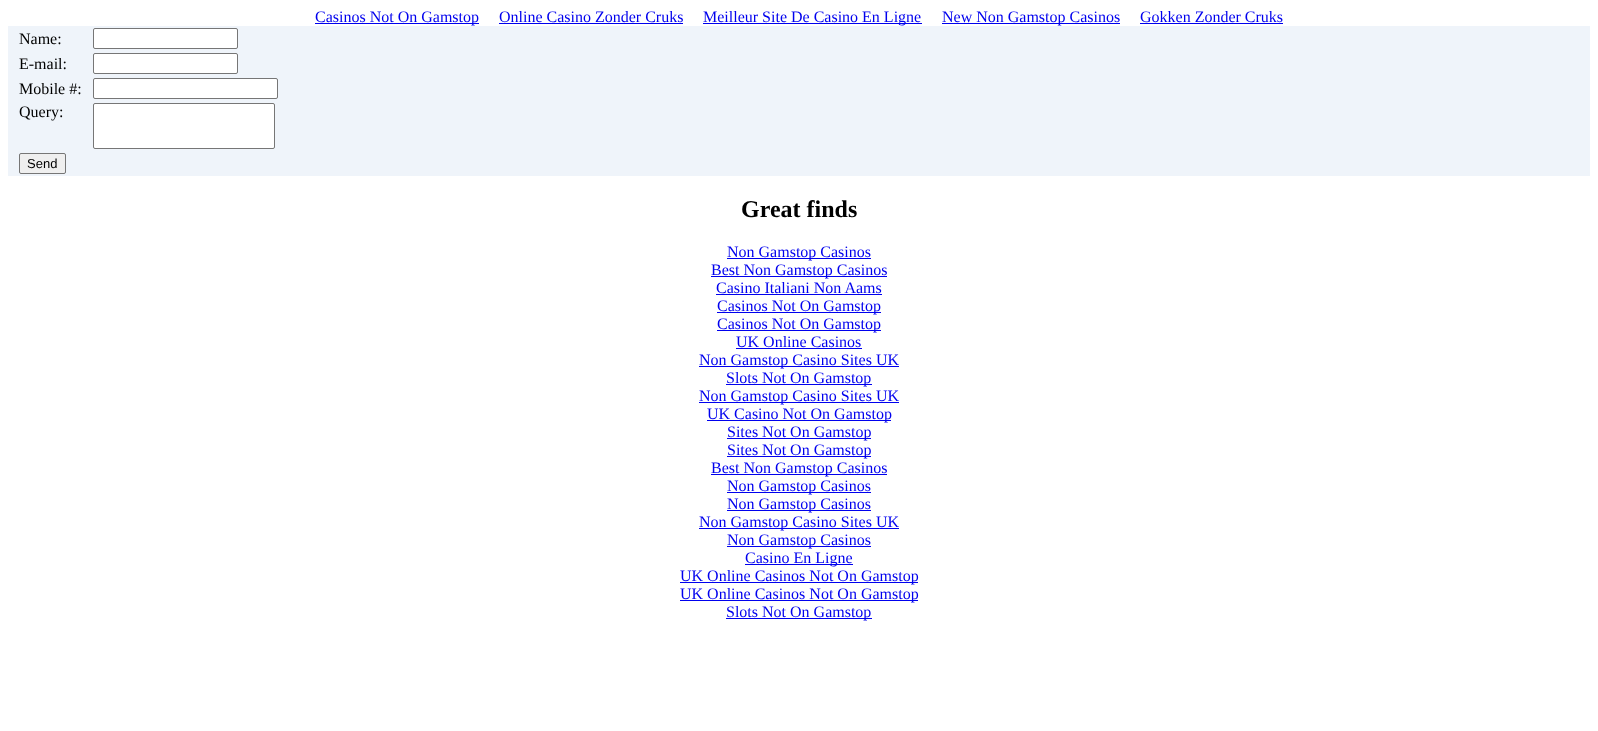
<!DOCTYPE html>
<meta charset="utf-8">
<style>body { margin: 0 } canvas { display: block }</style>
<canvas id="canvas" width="1598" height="731"></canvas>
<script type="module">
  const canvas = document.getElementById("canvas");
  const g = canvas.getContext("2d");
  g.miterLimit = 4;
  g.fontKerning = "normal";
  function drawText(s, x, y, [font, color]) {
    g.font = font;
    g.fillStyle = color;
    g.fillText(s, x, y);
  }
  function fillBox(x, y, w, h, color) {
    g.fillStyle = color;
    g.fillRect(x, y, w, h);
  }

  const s1 = ["16px Liberation Serif", "#0000EE"];
  const s2 = ["16px Liberation Serif", "#000000"];
  const s3 = ["13px Liberation Sans", "#000000"];
  const s4 = ["bold 24px Liberation Serif", "#000000"];

  fillBox(0, 0, 1598, 731, "#FFFFFF");
  fillBox(315, 23, 164, 1, "#0000EE");
  drawText("Casinos Not On Gamstop", 315, 22, s1);
  drawText("Online Casino Zonder Cruks", 499, 22, s1);
  fillBox(499, 23, 184, 1, "#0000EE");
  fillBox(703, 23, 219, 1, "#0000EE");
  drawText("Meilleur Site De Casino En Ligne", 703, 22, s1);
  fillBox(942, 23, 178, 1, "#0000EE");
  drawText("New Non Gamstop Casinos", 942, 22, s1);
  drawText("Gokken Zonder Cruks", 1140, 22, s1);
  fillBox(1140, 23, 143, 1, "#0000EE");
  fillBox(8, 26, 1582, 150, "#EFF4FA");
  drawText("Name:", 19, 44, s2);
  g.fillStyle = "#FFFFFF";
  g.beginPath();
  g.roundRect(93.5, 28.5, 144, 20, 1.5);
  g.fill();
  g.strokeStyle = "#767676";
  g.stroke();
  drawText("E-mail:", 19, 69, s2);
  g.fillStyle = "#FFFFFF";
  g.beginPath();
  g.roundRect(93.5, 53.5, 144, 20, 1.5);
  g.fill();
  g.stroke();
  drawText("Mobile #:", 19, 94, s2);
  g.fillStyle = "#FFFFFF";
  g.beginPath();
  g.roundRect(93.5, 78.5, 184, 20, 1.5);
  g.fill();
  g.stroke();
  drawText("Query:", 19, 117, s2);
  g.fillStyle = "#FFFFFF";
  g.beginPath();
  g.roundRect(93.5, 103.5, 181, 45, 1.5);
  g.fill();
  g.stroke();
  g.fillStyle = "#EFEFEF";
  g.beginPath();
  g.roundRect(19.5, 153.5, 46, 20, 1.5);
  g.fill();
  g.stroke();
  drawText("Send", 27, 168, s3);
  drawText("Great finds", 741, 217, s4);
  fillBox(727, 258, 144, 1, "#0000EE");
  drawText("Non Gamstop Casinos", 727, 257, s1);
  fillBox(711, 276, 176, 1, "#0000EE");
  drawText("Best Non Gamstop Casinos", 711, 275, s1);
  drawText("Casino Italiani Non Aams", 716, 293, s1);
  fillBox(716, 294, 166, 1, "#0000EE");
  fillBox(717, 312, 164, 1, "#0000EE");
  drawText("Casinos Not On Gamstop", 717, 311, s1);
  fillBox(717, 330, 164, 1, "#0000EE");
  drawText("Casinos Not On Gamstop", 717, 329, s1);
  drawText("UK Online Casinos", 736, 347, s1);
  fillBox(736, 348, 126, 1, "#0000EE");
  fillBox(699, 366, 200, 1, "#0000EE");
  drawText("Non Gamstop Casino Sites UK", 699, 365, s1);
  fillBox(726, 384, 146, 1, "#0000EE");
  drawText("Slots Not On Gamstop", 726, 383, s1);
  fillBox(699, 402, 200, 1, "#0000EE");
  drawText("Non Gamstop Casino Sites UK", 699, 401, s1);
  fillBox(707, 420, 184, 1, "#0000EE");
  drawText("UK Casino Not On Gamstop", 707, 419, s1);
  fillBox(727, 438, 144, 1, "#0000EE");
  drawText("Sites Not On Gamstop", 727, 437, s1);
  fillBox(727, 456, 144, 1, "#0000EE");
  drawText("Sites Not On Gamstop", 727, 455, s1);
  fillBox(711, 474, 176, 1, "#0000EE");
  drawText("Best Non Gamstop Casinos", 711, 473, s1);
  fillBox(727, 492, 144, 1, "#0000EE");
  drawText("Non Gamstop Casinos", 727, 491, s1);
  fillBox(727, 510, 144, 1, "#0000EE");
  drawText("Non Gamstop Casinos", 727, 509, s1);
  fillBox(699, 528, 200, 1, "#0000EE");
  drawText("Non Gamstop Casino Sites UK", 699, 527, s1);
  fillBox(727, 546, 144, 1, "#0000EE");
  drawText("Non Gamstop Casinos", 727, 545, s1);
  fillBox(745, 564, 108, 1, "#0000EE");
  drawText("Casino En Ligne", 745, 563, s1);
  fillBox(680, 582, 238, 1, "#0000EE");
  drawText("UK Online Casinos Not On Gamstop", 680, 581, s1);
  fillBox(680, 600, 238, 1, "#0000EE");
  drawText("UK Online Casinos Not On Gamstop", 680, 599, s1);
  fillBox(726, 618, 146, 1, "#0000EE");
  drawText("Slots Not On Gamstop", 726, 617, s1);
</script>
